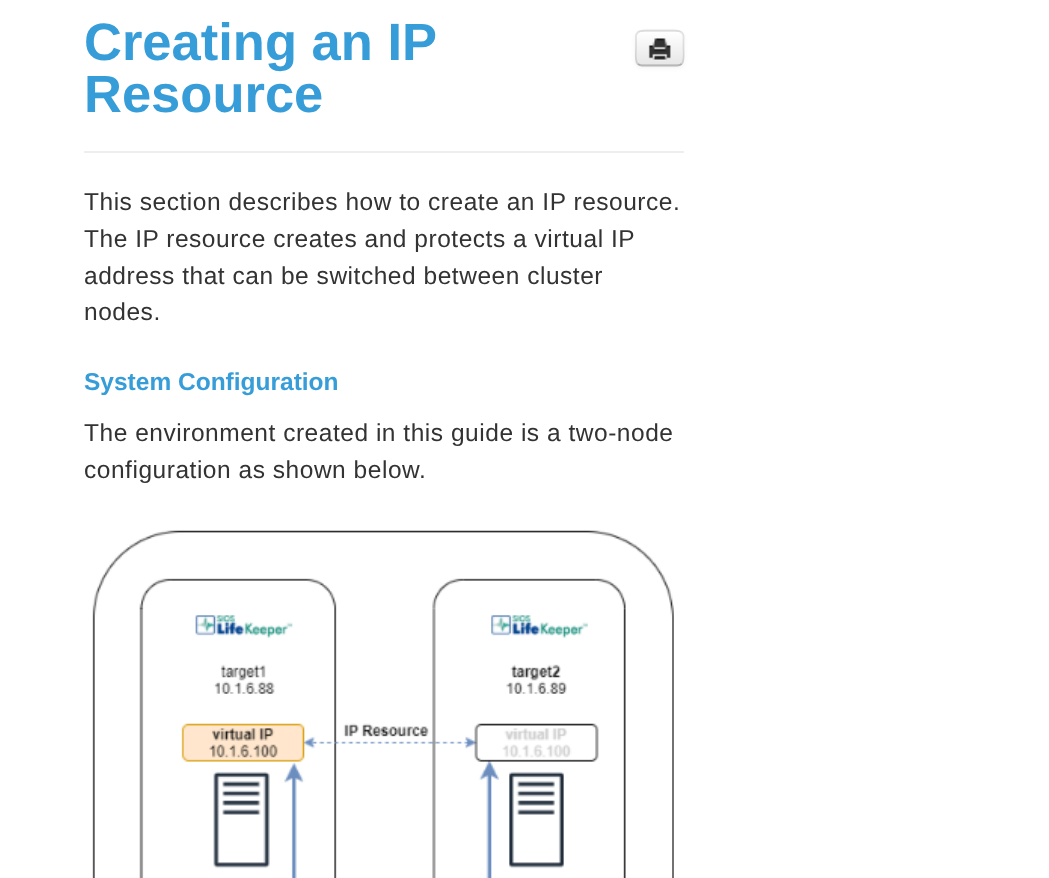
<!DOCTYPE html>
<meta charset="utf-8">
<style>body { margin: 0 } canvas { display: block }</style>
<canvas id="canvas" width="1049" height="878"></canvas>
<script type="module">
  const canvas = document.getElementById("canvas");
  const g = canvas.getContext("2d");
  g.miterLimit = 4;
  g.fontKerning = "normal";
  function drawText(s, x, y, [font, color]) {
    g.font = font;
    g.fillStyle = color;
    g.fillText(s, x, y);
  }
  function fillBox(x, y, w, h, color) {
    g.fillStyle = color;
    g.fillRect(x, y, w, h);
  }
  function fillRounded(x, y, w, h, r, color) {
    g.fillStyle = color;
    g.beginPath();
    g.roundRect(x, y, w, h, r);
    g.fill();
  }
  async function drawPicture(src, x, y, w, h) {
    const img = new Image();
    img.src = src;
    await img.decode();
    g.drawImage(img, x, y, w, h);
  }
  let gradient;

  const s1 = ["bold 52.5px Liberation Sans", "#369DD8"];
  const s2 = ["24.5px Liberation Sans", "#333333"];
  const s3 = ["bold 24.5px Liberation Sans", "#369DD8"];

  fillBox(0, 0, 1049, 878, "#FFFFFF");
  fillBox(84, 151, 600, 2, "#EEEEEE");
  drawText("Creating an IP", 84, 60, s1);
  drawText("Resource", 84, 112, s1);
  g.fillStyle = "rgba(0, 0, 0, 0.05)";
  g.filter = "blur(2px)";
  g.beginPath();
  g.roundRect(635, 32, 49, 36, 7);
  g.fill();
  g.filter = "none";
  fillRounded(635, 30, 49, 37, 7, "#F5F5F5");
  g.save();
  g.beginPath();
  g.roundRect(635, 30, 49, 37, 7);
  g.clip();
  gradient = g.createLinearGradient(660, 32, 660, 65);
  gradient.addColorStop(0, "#FFFFFF");
  gradient.addColorStop(1, "#E6E6E6");
  g.fillStyle = gradient;
  g.fillRect(635, 32, 49, 33);
  g.restore();
  g.beginPath();
  g.moveTo(681.5, 64);
  g.bezierCurveTo(680.5, 65, 679, 65.5, 677, 65.5);
  g.lineTo(642, 65.5);
  g.bezierCurveTo(640.5, 65.5, 639, 65, 638, 64);
  g.strokeStyle = "rgba(0, 0, 0, 0.25)";
  g.lineWidth = 1.8;
  g.stroke();
  g.beginPath();
  g.moveTo(638, 64);
  g.bezierCurveTo(634.5, 60.5, 636, 52, 636, 48);
  g.lineTo(636, 35.5);
  g.bezierCurveTo(637.5, 30, 643.5, 30.5, 648, 30.5);
  g.lineTo(671.5, 30.5);
  g.bezierCurveTo(676, 30.5, 682, 30, 683.5, 35.5);
  g.lineTo(683.5, 48);
  g.bezierCurveTo(683.5, 52, 685, 60.5, 681.5, 64);
  g.strokeStyle = "rgba(0, 0, 0, 0.1)";
  g.stroke();
  await drawPicture("pic1.png", 648, 38, 23, 23);
  g.letterSpacing = "0.53px";
  drawText("This section describes how to create an IP resource.", 84, 210, s2);
  drawText("The IP resource creates and protects a virtual IP", 84, 247, s2);
  drawText("address that can be switched between cluster", 84, 284, s2);
  drawText("nodes.", 84, 320, s2);
  g.letterSpacing = "0px";
  drawText("System Configuration", 84, 390, s3);
  g.letterSpacing = "0.53px";
  drawText("The environment created in this guide is a two-node", 84, 441, s2);
  drawText("configuration as shown below.", 84, 478, s2);
  await drawPicture("pic2.png", 92, 530, 582, 348);
</script>
